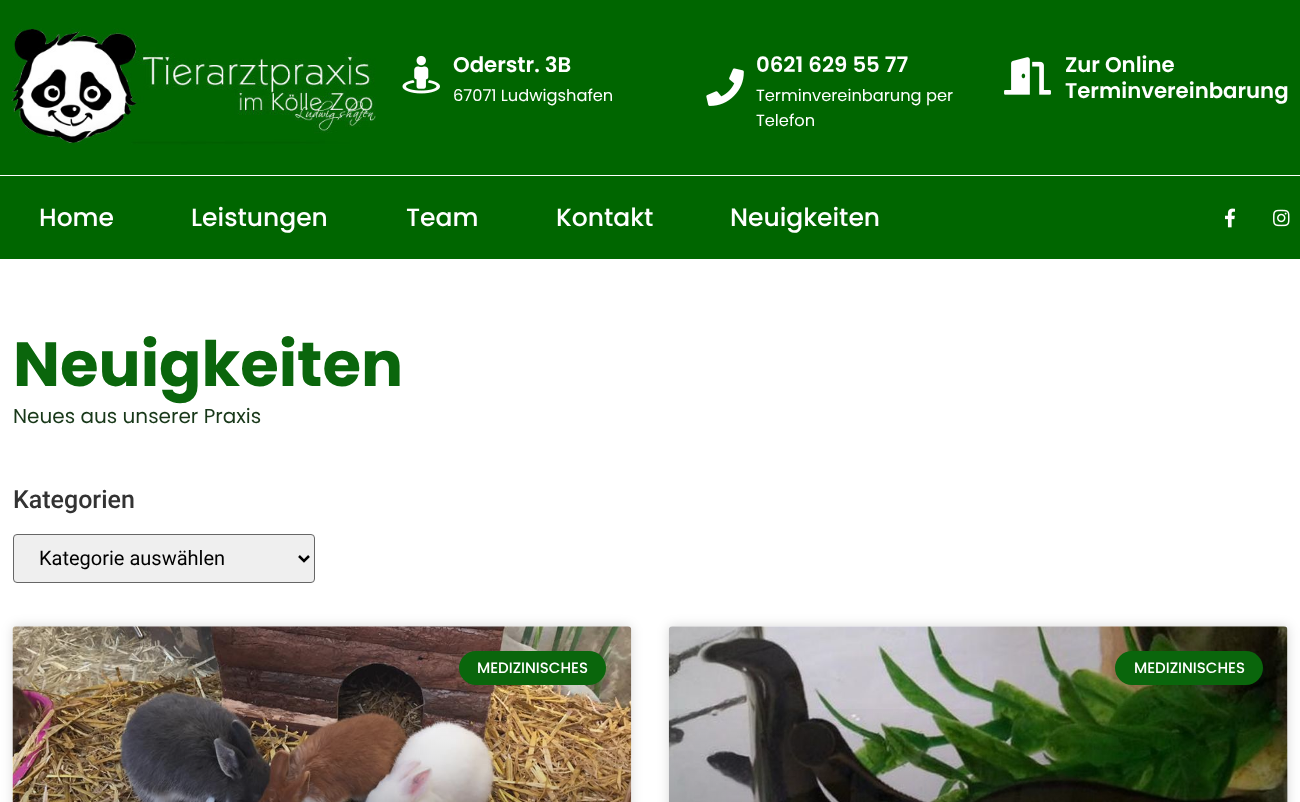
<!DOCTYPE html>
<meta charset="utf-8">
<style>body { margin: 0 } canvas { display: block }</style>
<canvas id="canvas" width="1300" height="802"></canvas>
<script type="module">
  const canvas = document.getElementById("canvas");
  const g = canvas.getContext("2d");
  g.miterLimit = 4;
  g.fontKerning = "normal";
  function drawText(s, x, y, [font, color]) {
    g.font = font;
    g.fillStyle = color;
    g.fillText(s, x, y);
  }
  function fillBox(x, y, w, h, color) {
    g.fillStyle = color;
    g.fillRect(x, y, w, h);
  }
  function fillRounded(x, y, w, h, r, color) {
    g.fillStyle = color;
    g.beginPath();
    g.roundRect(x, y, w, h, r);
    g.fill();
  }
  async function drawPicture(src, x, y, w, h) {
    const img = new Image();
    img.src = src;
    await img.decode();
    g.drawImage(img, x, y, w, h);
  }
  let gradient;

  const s1 = ["600 21.25px Poppins", "#FFFFFF"];
  const s2 = ["16.25px Poppins", "#FFFFFF"];
  const s3 = ["500 25px Poppins", "#FFFFFF"];
  const s4 = ["bold 62.5px Poppins", "#0A660C"];
  const s5 = ["20px Poppins", "#183819"];
  const s6 = ["500 25px Roboto", "#333333"];
  const s7 = ["20px Roboto", "#000000"];
  const s8 = ["500 15px Poppins", "#FFFFFF"];

  fillBox(0, 0, 1300, 802, "#FFFFFF");
  fillBox(0, 0, 1300, 175, "#006600");
  await drawPicture("pic1.png", 10, 28, 366, 117);
  await drawPicture("pic2.png", 402, 55, 38, 39);
  drawText("Oderstr. 3B", 453, 72, s1);
  drawText("67071 Ludwigshafen", 453, 101, s2);
  await drawPicture("pic3.png", 706, 68, 38, 38);
  drawText("0621 629 55 77", 756, 72, s1);
  drawText("Terminvereinbarung per", 756, 101, s2);
  drawText("Telefon", 756, 126, s2);
  await drawPicture("pic4.png", 1004, 57, 47, 38);
  drawText("Zur Online", 1065, 72, s1);
  drawText("Terminvereinbarung", 1065, 98, s1);
  fillBox(0, 176, 1300, 83, "#006600");
  drawText("Home", 39, 226, s3);
  drawText("Leistungen", 191, 226, s3);
  drawText("Team", 406, 226, s3);
  drawText("Kontakt", 556, 226, s3);
  drawText("Neuigkeiten", 730, 226, s3);
  await drawPicture("pic5.png", 1225, 208, 10, 20);
  await drawPicture("pic6.png", 1273, 209, 17, 18);
  drawText("Neuigkeiten", 13, 386, s4);
  drawText("Neues aus unserer Praxis", 13, 423, s5);
  drawText("Kategorien", 13, 508, s6);
  g.fillStyle = "#EFEFEF";
  g.beginPath();
  g.roundRect(13.5, 534.5, 301, 48, 3.5);
  g.fill();
  g.strokeStyle = "#666666";
  g.stroke();
  g.beginPath();
  g.moveTo(299, 556);
  g.lineTo(304, 561);
  g.lineTo(309, 556);
  g.strokeStyle = "#000000";
  g.lineWidth = 2.5;
  g.stroke();
  drawText("Kategorie auswählen", 39, 565, s7);
  g.fillStyle = "rgba(0, 0, 0, 0.15)";
  g.filter = "blur(6px)";
  g.beginPath();
  g.roundRect(13, 626, 618, 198, 4);
  g.fill();
  g.filter = "none";
  fillRounded(13, 626, 618, 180, 4, "#FFFFFF");
  await drawPicture("pic7.png", 12, 626, 620, 176);
  gradient = g.createLinearGradient(322, 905, 322, 626);
  gradient.addColorStop(0, "rgba(0, 0, 0, 0.35)");
  gradient.addColorStop(0.75, "rgba(0, 0, 0, 0)");
  g.fillStyle = gradient;
  g.fillRect(13, 709, 618, 93);
  fillRounded(459, 651, 147, 34, 17, "#0A660C");
  drawText("MEDIZINISCHES", 477, 673, s8);
  g.fillStyle = "rgba(0, 0, 0, 0.15)";
  g.filter = "blur(6px)";
  g.beginPath();
  g.roundRect(669, 626, 619, 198, 4);
  g.fill();
  g.filter = "none";
  fillRounded(669, 626, 619, 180, 4, "#FFFFFF");
  await drawPicture("pic8.png", 668, 626, 620, 176);
  gradient = g.createLinearGradient(978, 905, 978, 626);
  gradient.addColorStop(0, "rgba(0, 0, 0, 0.35)");
  gradient.addColorStop(0.75, "rgba(0, 0, 0, 0)");
  g.fillStyle = gradient;
  g.fillRect(669, 709, 619, 93);
  fillRounded(1115, 651, 148, 34, 17, "#0A660C");
  drawText("MEDIZINISCHES", 1134, 673, s8);
</script>
